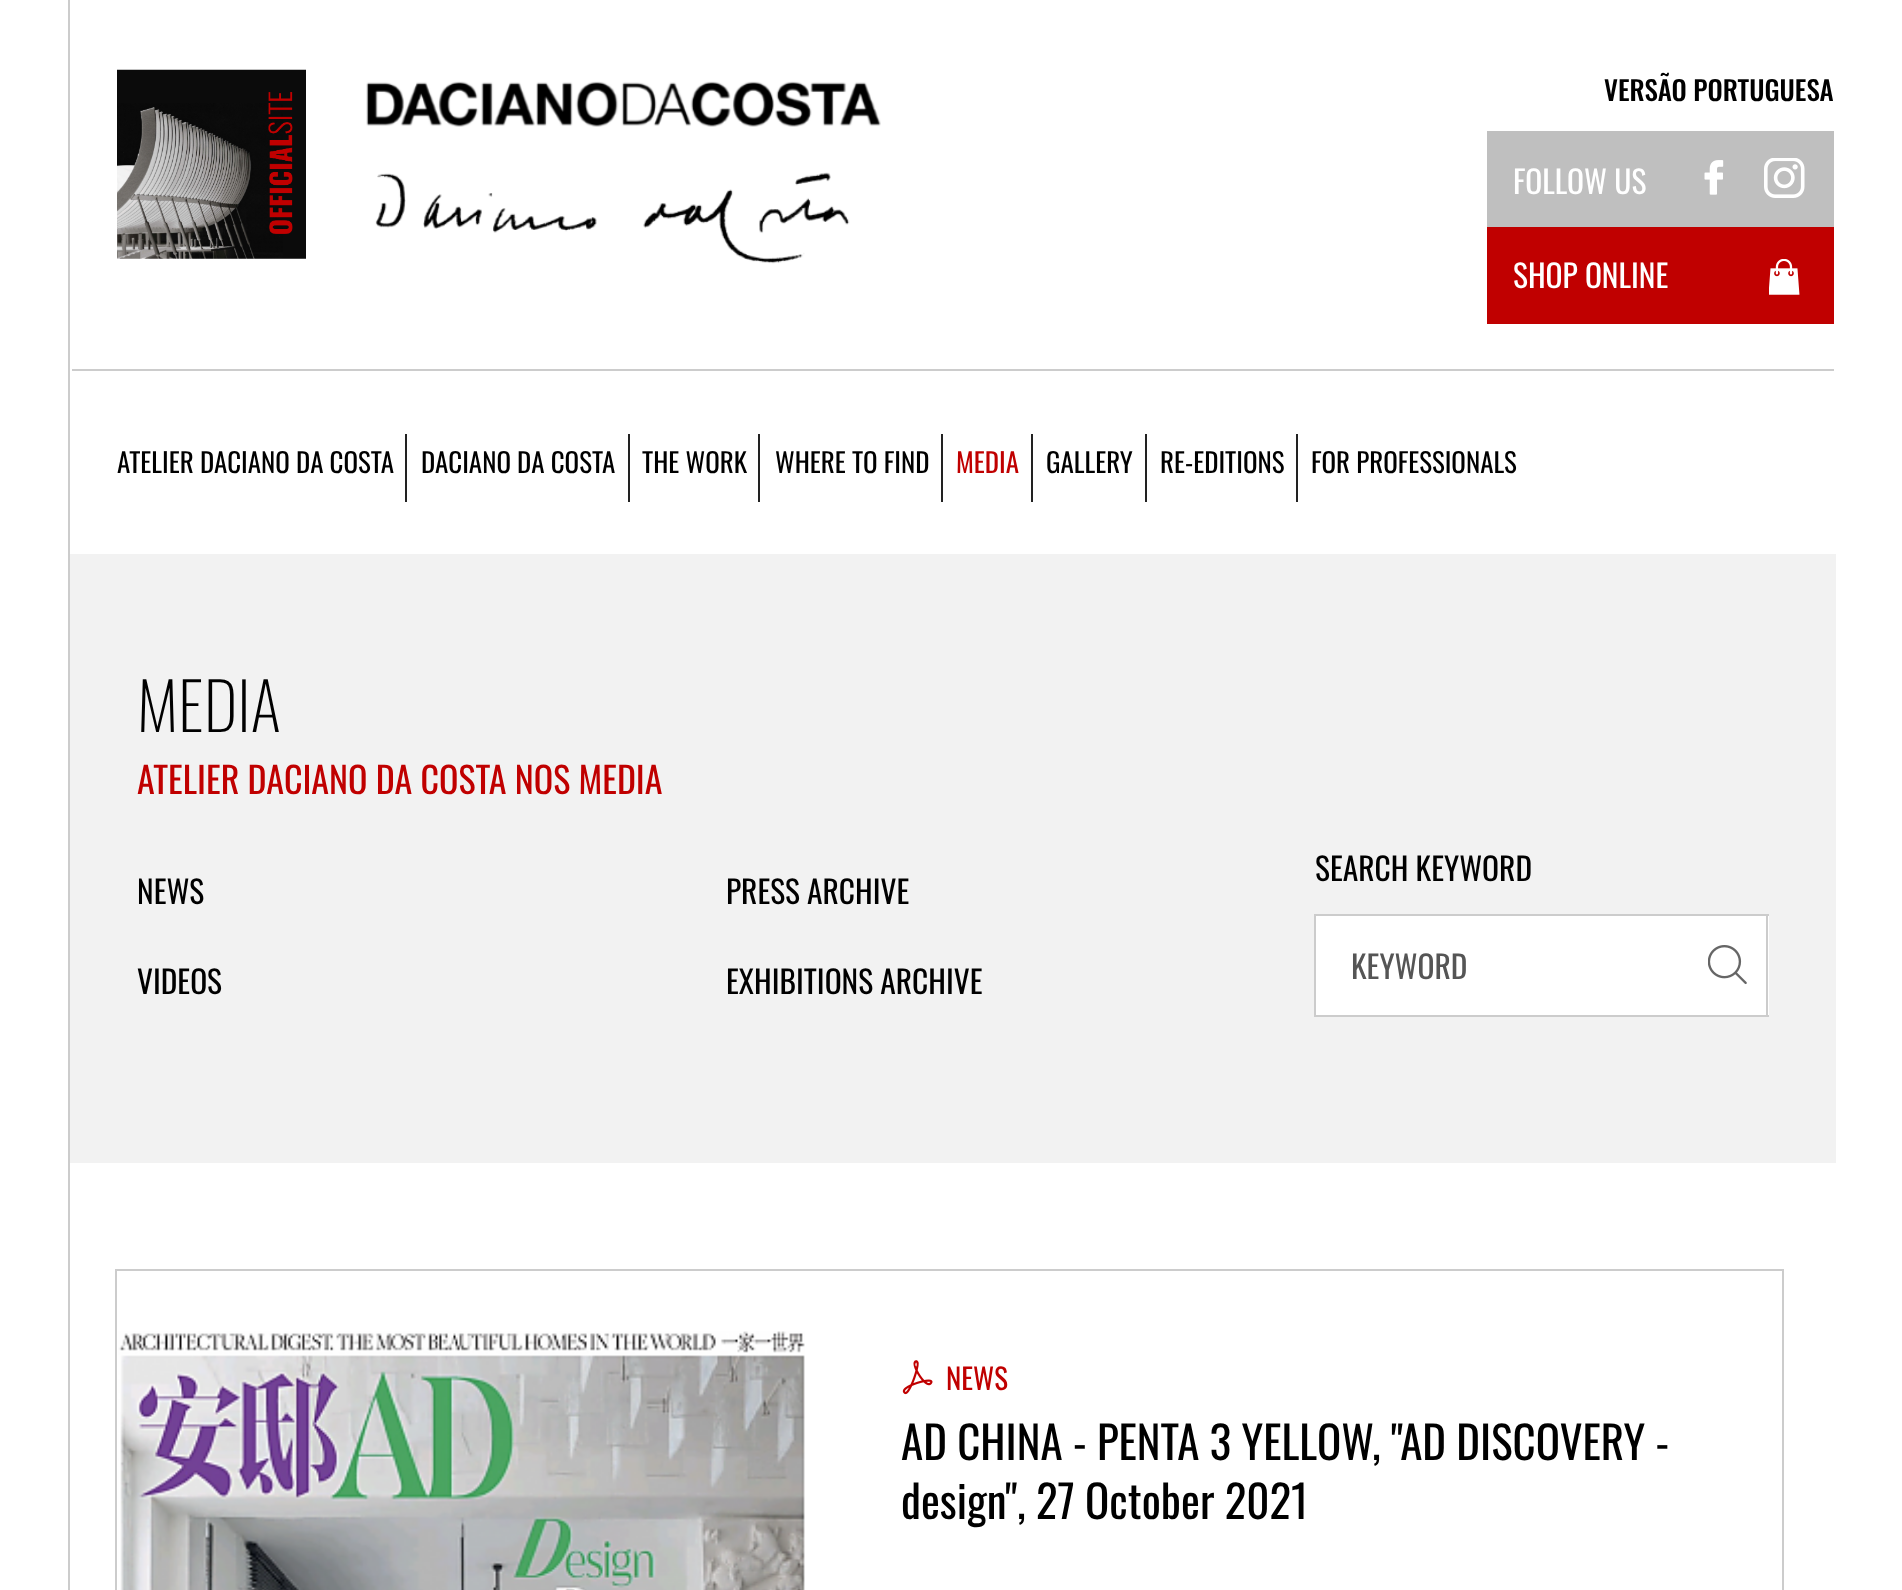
<!DOCTYPE html>
<meta charset="utf-8">
<style>body { margin: 0 } canvas { display: block }</style>
<canvas id="canvas" width="1902" height="1590"></canvas>
<script type="module">
  const canvas = document.getElementById("canvas");
  const g = canvas.getContext("2d");
  g.miterLimit = 4;
  g.fontKerning = "normal";
  function drawText(s, x, y, [font, color]) {
    g.font = font;
    g.fillStyle = color;
    g.fillText(s, x, y);
  }
  function fillBox(x, y, w, h, color) {
    g.fillStyle = color;
    g.fillRect(x, y, w, h);
  }
  async function drawPicture(src, x, y, w, h) {
    const img = new Image();
    img.src = src;
    await img.decode();
    g.drawImage(img, x, y, w, h);
  }

  const s1 = ["500 27px Oswald", "#000000"];
  const s2 = ["31.5px Oswald", "#FFFFFF"];
  const s3 = ["27px Oswald", "#000000"];
  const s4 = ["27px Oswald", "#C00000"];
  const s5 = ["200 65px Oswald", "#000000"];
  const s6 = ["36px Oswald", "#C00000"];
  const s7 = ["31.5px Oswald", "#000000"];
  const s8 = ["31.5px Oswald", "#555555"];
  const s9 = ["29px Oswald", "#C00000"];
  const s10 = ["45px Oswald", "#000000"];

  fillBox(0, 0, 1902, 1590, "#FFFFFF");
  fillBox(68, 0, 2, 1590, "#CCCCCC");
  fillBox(72, 369, 1762, 2, "#CCCCCC");
  await drawPicture("pic1.png", 117, 69, 189, 190);
  await drawPicture("pic2.png", 366, 81, 515, 183);
  drawText("VERSÃO PORTUGUESA", 1604, 101, s1);
  fillBox(1487, 131, 347, 96, "#BFBFBF");
  drawText("FOLLOW US", 1513, 194, s2);
  await drawPicture("pic3.png", 1704, 160, 20, 35);
  await drawPicture("pic4.png", 1764, 158, 41, 40);
  fillBox(1487, 227, 347, 97, "#C00000");
  drawText("SHOP ONLINE", 1513, 288, s2);
  await drawPicture("pic5.png", 1769, 259, 31, 36);
  drawText("ATELIER DACIANO DA COSTA", 117, 473, s3);
  fillBox(405, 434, 2, 68, "#222222");
  drawText("DACIANO DA COSTA", 421, 473, s3);
  fillBox(628, 434, 2, 68, "#222222");
  drawText("THE WORK", 642, 473, s3);
  fillBox(758, 434, 2, 68, "#222222");
  drawText("WHERE TO FIND", 775, 473, s3);
  fillBox(941, 434, 2, 68, "#222222");
  drawText("MEDIA", 956, 473, s4);
  fillBox(1031, 434, 2, 68, "#222222");
  drawText("GALLERY", 1046, 473, s3);
  fillBox(1145, 434, 2, 68, "#222222");
  drawText("RE-EDITIONS", 1160, 473, s3);
  fillBox(1296, 434, 2, 68, "#222222");
  drawText("FOR PROFESSIONALS", 1311, 473, s3);
  fillBox(70, 554, 1766, 609, "#F2F2F2");
  drawText("MEDIA", 137, 732, s5);
  drawText("ATELIER DACIANO DA COSTA NOS MEDIA", 137, 794, s6);
  drawText("NEWS", 137, 904, s7);
  drawText("VIDEOS", 137, 994, s7);
  drawText("PRESS ARCHIVE", 726, 904, s7);
  drawText("EXHIBITIONS ARCHIVE", 726, 994, s7);
  drawText("SEARCH KEYWORD", 1315, 881, s7);
  fillBox(1316, 916, 453, 99, "#FFFFFF");
  fillBox(1314, 914, 455, 2, "#CCCCCC");
  fillBox(1766, 914, 2, 103, "#CCCCCC");
  fillBox(1314, 1015, 455, 2, "#CCCCCC");
  await drawPicture("pic6.png", 1708, 945, 39, 40);
  fillBox(1314, 914, 2, 103, "#CCCCCC");
  drawText("KEYWORD", 1351, 979, s8);
  g.strokeStyle = "#CCCCCC";
  g.lineWidth = 2;
  g.strokeRect(116, 1270, 1667, 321);
  await drawPicture("pic7.png", 118, 1331, 687, 259);
  await drawPicture("pic8.png", 902, 1360, 31, 35);
  drawText("NEWS", 946, 1390, s9);
  drawText("AD CHINA - PENTA 3 YELLOW, \"AD DISCOVERY -", 901, 1460, s10);
  drawText("design\", 27 October 2021", 901, 1519, s10);
</script>
